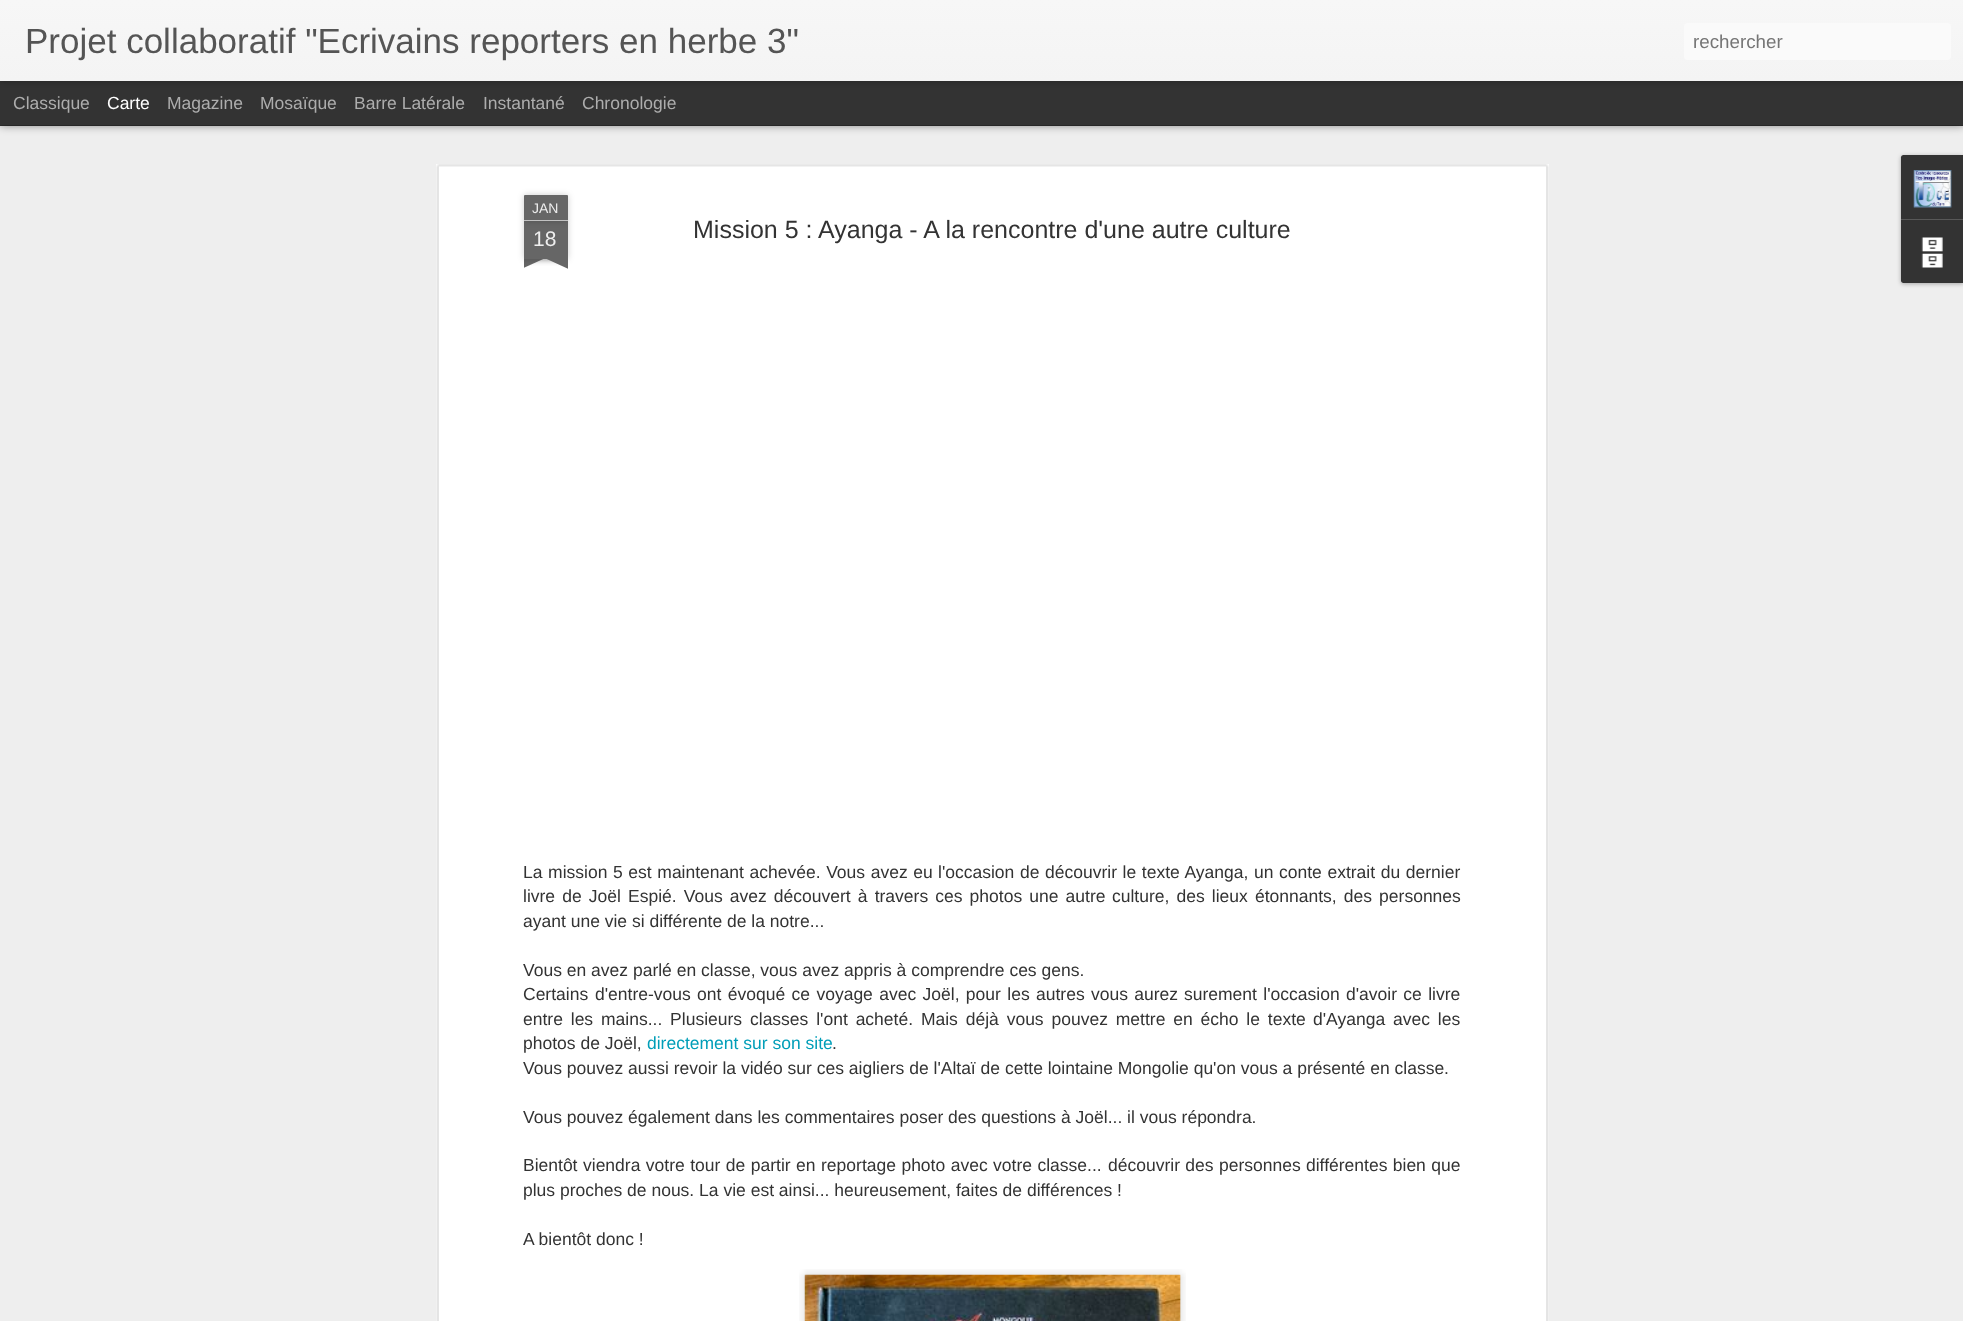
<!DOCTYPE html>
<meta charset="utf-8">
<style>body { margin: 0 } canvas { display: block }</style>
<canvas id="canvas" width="1963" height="1321"></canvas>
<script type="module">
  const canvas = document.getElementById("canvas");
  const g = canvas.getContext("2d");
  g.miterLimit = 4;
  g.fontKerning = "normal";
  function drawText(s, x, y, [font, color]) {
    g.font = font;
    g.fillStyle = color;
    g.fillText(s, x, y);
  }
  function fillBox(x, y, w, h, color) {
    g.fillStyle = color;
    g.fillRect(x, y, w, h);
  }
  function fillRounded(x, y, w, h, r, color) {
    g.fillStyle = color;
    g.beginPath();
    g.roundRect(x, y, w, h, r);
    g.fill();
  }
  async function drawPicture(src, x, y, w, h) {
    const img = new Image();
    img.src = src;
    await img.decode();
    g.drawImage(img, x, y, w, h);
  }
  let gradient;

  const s1 = ["35px Liberation Sans", "#555555"];
  const s2 = ["18.75px Liberation Sans", "#757575"];
  const s3 = ["17.5px Liberation Sans", "#ADADAD"];
  const s4 = ["17.5px Liberation Sans", "#FFFFFF"];
  const s5 = ["14px Liberation Sans", "#EEEEEE"];
  const s6 = ["21px Liberation Sans", "#EEEEEE"];
  const s7 = ["25px Liberation Sans", "#333333"];
  const s8 = ["17.5px Liberation Sans", "#333333"];
  const s9 = ["17.5px Liberation Sans", "#009EB8"];

  fillBox(0, 0, 1963, 1321, "#333333");
  fillBox(0, 126, 1963, 1195, "#EEEEEE");
  g.fillStyle = "rgba(0, 0, 0, 0.5)";
  g.filter = "blur(5px)";
  g.beginPath();
  g.rect(0, 81, 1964, 44);
  g.fill();
  g.filter = "none";
  fillBox(0, 81, 1963, 44, "#333333");
  g.fillStyle = "rgba(0, 0, 0, 0.3)";
  g.filter = "blur(3px)";
  g.beginPath();
  g.rect(0, 0, 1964, 81);
  g.fill();
  g.filter = "none";
  gradient = g.createLinearGradient(0, 0, 0, 81);
  gradient.addColorStop(0, "#F7F7F7");
  gradient.addColorStop(1, "#F4F4F4");
  g.fillStyle = gradient;
  g.fillRect(0, 0, 1963, 81);
  drawText("Projet collaboratif \"Ecrivains reporters en herbe 3\"", 25, 53, s1);
  fillRounded(1684, 23, 267, 37, 4, "#FAFAFA");
  drawText("rechercher", 1693, 48, s2);
  drawText("Classique", 13, 109, s3);
  drawText("Carte", 107, 109, s4);
  drawText("Magazine", 167, 109, s3);
  drawText("Mosaïque", 260, 109, s3);
  drawText("Barre Latérale", 354, 109, s3);
  drawText("Instantané", 483, 109, s3);
  drawText("Chronologie", 582, 109, s3);
  fillBox(436, 164, 1113, 1157, "#FFFFFF");
  await drawPicture("pic1.png", 436, 164, 1113, 1157);
  g.fillStyle = "rgba(0, 0, 0, 0.2)";
  g.filter = "blur(3px)";
  g.beginPath();
  g.rect(524, 221, 44, 38);
  g.fill();
  g.filter = "none";
  fillBox(524, 221, 44, 38, "#666666");
  g.fillStyle = "rgba(0, 0, 0, 0.2)";
  g.filter = "blur(3px)";
  g.beginPath();
  g.roundRect(524, 195, 44, 26, 1);
  g.fill();
  g.filter = "none";
  g.fillStyle = "#666666";
  g.beginPath();
  g.roundRect(524, 195, 44, 26, [1, 1, 0, 0]);
  g.fill();
  fillBox(524, 220, 44, 1, "#C2C2C2");
  drawText("JAN", 532, 213, s5);
  drawText("18", 533, 246, s6);
  g.save();
  g.beginPath();
  g.rect(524, 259, 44, 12);
  g.clip();
  g.fillStyle = "rgba(0, 0, 0, 0.2)";
  g.filter = "blur(3px)";
  g.beginPath();
  g.rect(513, 246, 62, 13);
  g.fill();
  g.filter = "none";
  g.restore();
  g.save();
  g.beginPath();
  g.rect(524, 259, 44, 12);
  g.clip();
  g.fillStyle = "#666666";
  g.beginPath();
  g.moveTo(512, 260);
  g.lineTo(569, 234);
  g.lineTo(574, 245);
  g.lineTo(517, 271);
  g.closePath();
  g.fill();
  g.restore();
  g.save();
  g.beginPath();
  g.rect(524, 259, 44, 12);
  g.clip();
  g.fillStyle = "rgba(0, 0, 0, 0.2)";
  g.filter = "blur(3px)";
  g.beginPath();
  g.rect(516, 246, 63, 13);
  g.fill();
  g.filter = "none";
  g.restore();
  g.save();
  g.beginPath();
  g.rect(524, 259, 44, 12);
  g.clip();
  g.fillStyle = "#666666";
  g.beginPath();
  g.moveTo(521, 234);
  g.lineTo(578, 260);
  g.lineTo(573, 271);
  g.lineTo(516, 245);
  g.closePath();
  g.fill();
  g.restore();
  drawText("Mission 5 : Ayanga - A la rencontre d'une autre culture", 693, 238, s7);
  g.wordSpacing = "0.75px";
  drawText("La mission 5 est maintenant achevée. Vous avez eu", 523, 878, s8);
  drawText("l'occasion de découvrir le texte Ayanga, un conte extrait du dernier", 938, 878, s8);
  g.wordSpacing = "2.25px";
  drawText("livre de Joël Espié. Vous avez découvert à travers ces photos une autre", 523, 902, s8);
  drawText("culture, des lieux étonnants, des personnes", 1112, 902, s8);
  g.wordSpacing = "0px";
  drawText("ayant une vie si différente de la notre...", 523, 927, s8);
  drawText("Vous en avez parlé en classe, vous avez appris à comprendre ces gens.", 523, 976, s8);
  drawText("Certains", 523, 1000, s8);
  g.wordSpacing = "1.5px";
  drawText("d'entre-vous ont évoqué ce voyage avec Joël, pour les autres vous aurez", 595, 1000, s8);
  drawText("surement l'occasion d'avoir ce livre", 1184, 1000, s8);
  g.wordSpacing = "3px";
  drawText("entre les mains... Plusieurs", 523, 1025, s8);
  drawText("classes l'ont acheté. Mais déjà vous pouvez mettre en écho le texte", 750, 1025, s8);
  drawText("d'Ayanga avec les", 1313, 1025, s8);
  g.wordSpacing = "0px";
  drawText("photos de Joël,", 523, 1049, s8);
  drawText("directement sur son site", 647, 1049, s9);
  drawText(".", 832, 1049, s8);
  drawText("Vous pouvez aussi revoir la vidéo sur ces aigliers de l'Altaï de cette lointaine Mongolie qu'on vous a présenté en classe.", 523, 1074, s8);
  drawText("Vous pouvez également dans les commentaires poser des questions à Joël... il vous répondra.", 523, 1123, s8);
  drawText("Bientôt", 523, 1171, s8);
  g.wordSpacing = "0.6px";
  drawText("viendra votre tour de partir en reportage photo avec votre classe...", 583, 1171, s8);
  g.wordSpacing = "0.5px";
  drawText("découvrir des personnes différentes bien que", 1108, 1171, s8);
  g.wordSpacing = "0px";
  drawText("plus proches de nous. La vie est ainsi... heureusement, faites de différences !", 523, 1196, s8);
  drawText("A bientôt donc !", 523, 1245, s8);
  await drawPicture("pic2.png", 799, 1269, 387, 52);
  await drawPicture("pic3.png", 804, 1274, 377, 47);
  g.fillStyle = "rgba(0, 0, 0, 0.3)";
  g.filter = "blur(2px)";
  g.beginPath();
  g.roundRect(1901, 156, 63, 128, 2.5);
  g.fill();
  g.filter = "none";
  g.fillStyle = "#333333";
  g.beginPath();
  g.moveTo(1903.5, 155);
  g.lineTo(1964, 155);
  g.lineTo(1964, 219);
  g.lineTo(1901, 219);
  g.lineTo(1901, 157.5);
  g.bezierCurveTo(1901, 156, 1902, 155, 1903.5, 155);
  g.closePath();
  g.fill();
  await drawPicture("pic4.png", 1913, 170, 39, 38);
  g.beginPath();
  g.moveTo(1901, 219);
  g.lineTo(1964, 219);
  g.lineTo(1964, 283);
  g.lineTo(1903.5, 283);
  g.bezierCurveTo(1902, 283, 1901, 282, 1901, 280.5);
  g.closePath();
  g.fill();
  fillBox(1901, 219, 62, 1, "#585858");
  await drawPicture("pic5.png", 1921, 237, 22, 31);
</script>
